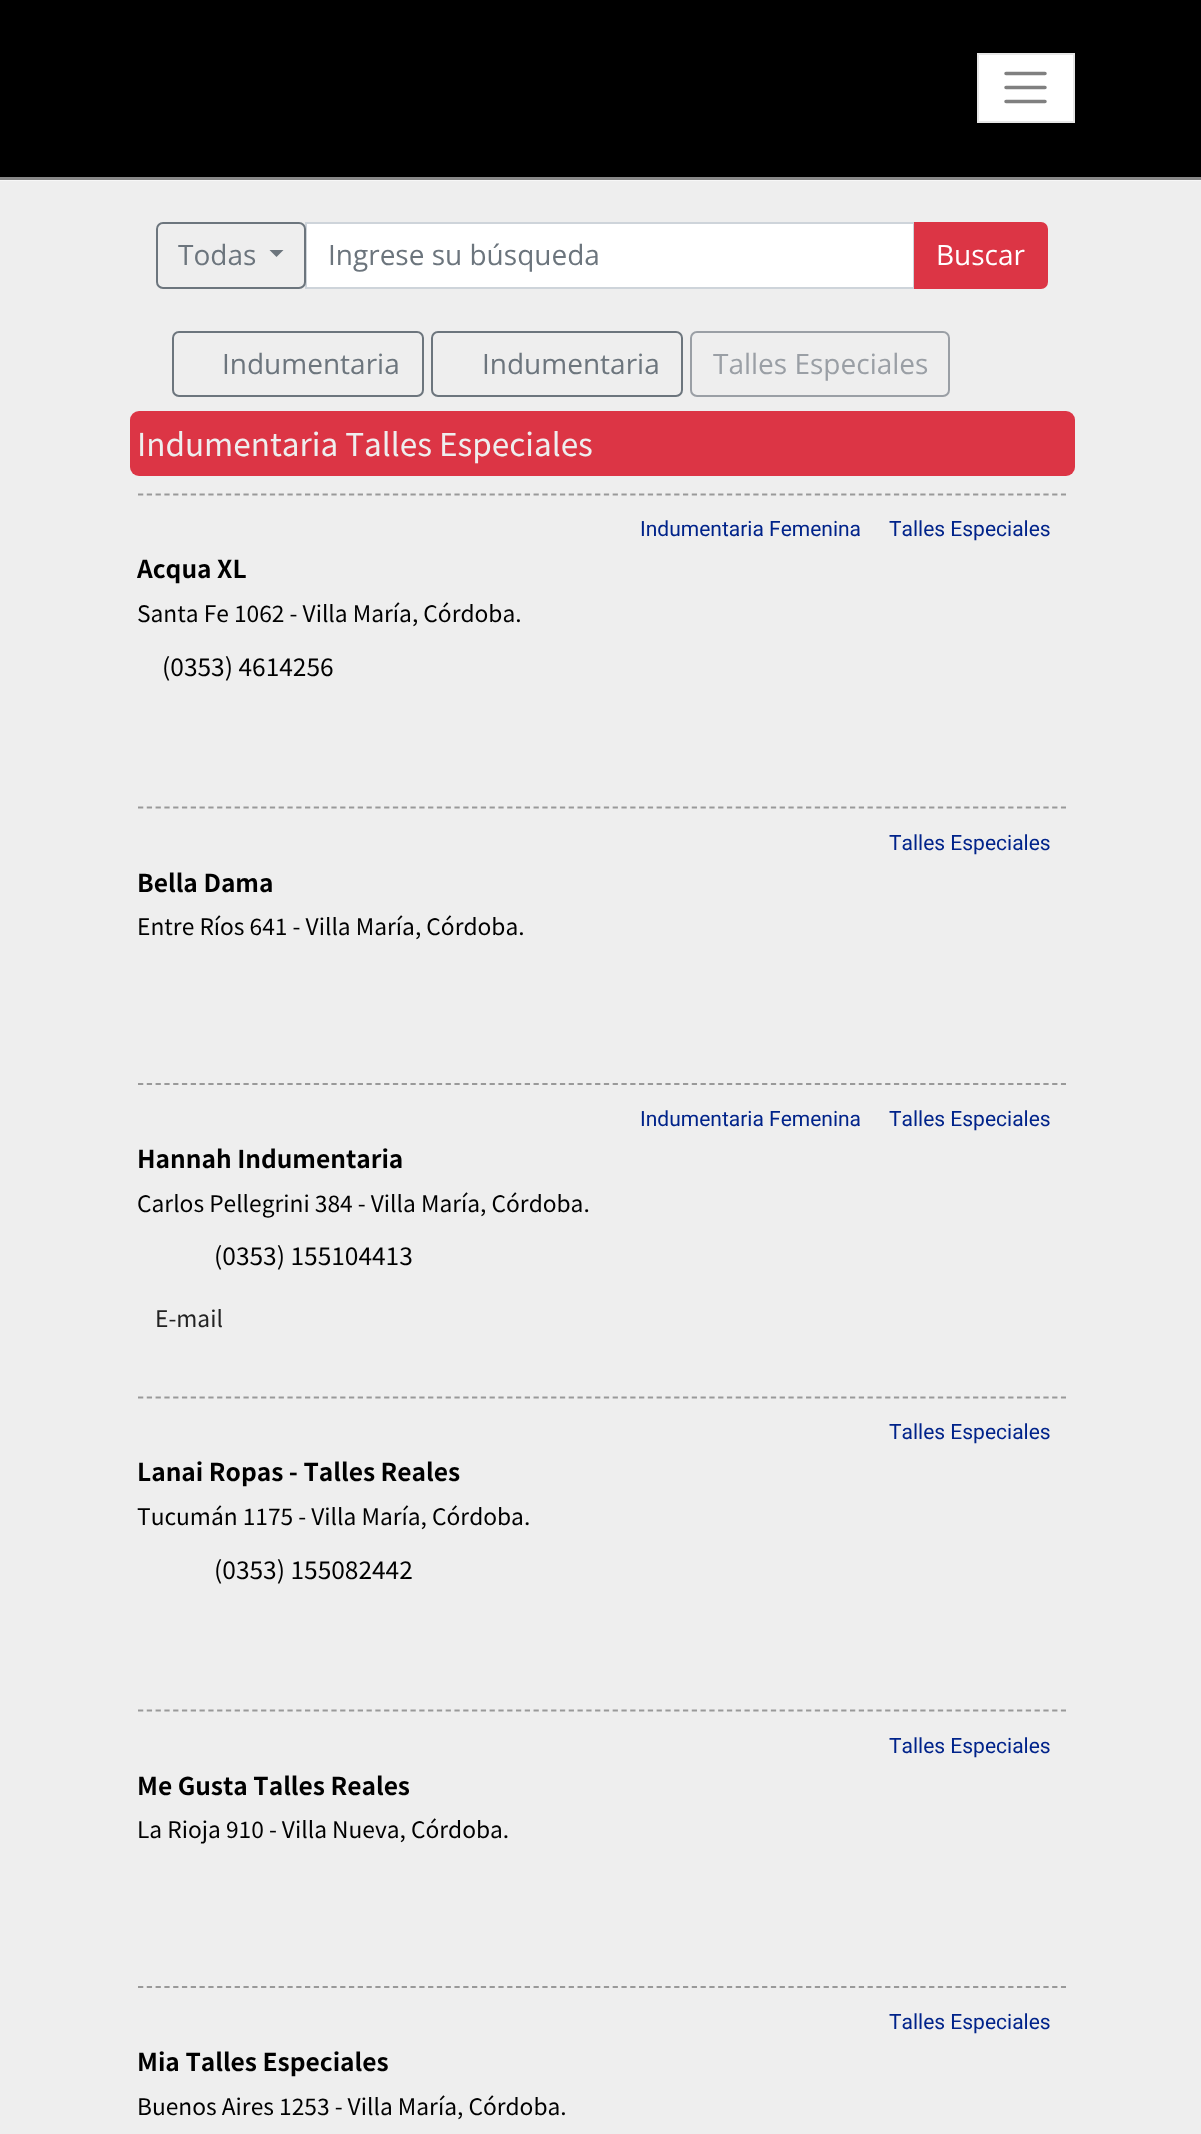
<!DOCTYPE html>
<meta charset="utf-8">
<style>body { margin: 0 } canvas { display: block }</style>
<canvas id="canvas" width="1201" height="2134"></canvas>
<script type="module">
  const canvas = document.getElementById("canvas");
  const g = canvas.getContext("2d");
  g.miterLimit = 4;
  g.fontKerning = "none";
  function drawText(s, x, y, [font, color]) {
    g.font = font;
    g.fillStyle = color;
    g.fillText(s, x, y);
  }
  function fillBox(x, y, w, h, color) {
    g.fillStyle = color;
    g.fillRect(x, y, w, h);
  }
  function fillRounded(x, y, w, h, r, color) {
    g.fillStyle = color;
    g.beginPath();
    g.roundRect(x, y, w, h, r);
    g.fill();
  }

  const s1 = ["28px Open Sans", "#6C757D"];
  const s2 = ["28px Open Sans", "#FFFFFF"];
  const s3 = ["28px Open Sans", "#9A9FA5"];
  const s4 = ["31.5px Noto Sans JP", "#EEEEEE"];
  const s5 = ["21px Roboto", "#00238A"];
  const s6 = ["bold 24.5px Noto Sans JP", "#000000"];
  const s7 = ["22.75px Noto Sans JP", "#000000"];
  const s8 = ["24.5px Noto Sans JP", "#000000"];
  const s9 = ["22.75px Noto Sans JP", "#222222"];

  fillBox(0, 0, 1201, 2134, "#EEEEEE");
  fillBox(0, 180, 1201, 1, "#F7F7F7");
  fillBox(0, 0, 1201, 177, "#000000");
  fillBox(0, 177, 1201, 3, "#878787");
  g.fillStyle = "#FFFFFF";
  g.beginPath();
  g.rect(978, 54, 96, 68);
  g.fill();
  g.strokeStyle = "#E6E6E6";
  g.lineWidth = 2;
  g.stroke();
  g.beginPath();
  g.moveTo(1006, 73.5);
  g.lineTo(1045, 73.5);
  g.moveTo(1006, 87.5);
  g.lineTo(1045, 87.5);
  g.moveTo(1006, 101.5);
  g.lineTo(1045, 101.5);
  g.strokeStyle = "#808080";
  g.lineWidth = 3.5;
  g.lineCap = "round";
  g.stroke();
  g.beginPath();
  g.rect(306, 223, 608, 65);
  g.fill();
  g.strokeStyle = "#CED4DA";
  g.lineWidth = 2;
  g.stroke();
  g.beginPath();
  g.roundRect(157, 223, 148, 65, 6);
  g.strokeStyle = "#6C757D";
  g.stroke();
  drawText("Todas", 178, 265, s1);
  g.beginPath();
  g.moveTo(269.5, 250);
  g.lineTo(283.5, 250);
  g.lineTo(276.5, 257);
  g.closePath();
  g.fill();
  drawText("Ingrese su búsqueda", 328, 265, s1);
  g.fillStyle = "#DC3545";
  g.beginPath();
  g.roundRect(915, 223, 132, 65, [0, 6, 6, 0]);
  g.fill();
  g.strokeStyle = "#DC3545";
  g.stroke();
  drawText("Buscar", 936, 265, s2);
  g.beginPath();
  g.roundRect(173, 332, 250, 64, 6);
  g.strokeStyle = "#6C757D";
  g.stroke();
  drawText("Indumentaria", 222, 374, s1);
  g.beginPath();
  g.roundRect(432, 332, 250, 64, 6);
  g.stroke();
  drawText("Indumentaria", 482, 374, s1);
  g.beginPath();
  g.roundRect(691, 332, 258, 64, 6);
  g.strokeStyle = "#9A9FA5";
  g.stroke();
  drawText("Talles Especiales", 713, 374, s3);
  fillRounded(130, 411, 945, 65, 9, "#DC3545");
  drawText("Indumentaria Talles Especiales", 137, 456, s4);
  g.beginPath();
  g.moveTo(138, 494.5);
  g.lineTo(1066, 494.5);
  g.strokeStyle = "#999999";
  g.lineWidth = 1.8;
  g.lineCap = "butt";
  g.setLineDash([5.25, 3.54]);
  g.stroke();
  drawText("Indumentaria Femenina", 640, 536, s5);
  drawText("Talles Especiales", 889, 536, s5);
  drawText("Acqua XL", 137, 578, s6);
  drawText("Santa Fe 1062 - Villa María, Córdoba.", 137, 622, s7);
  drawText("(0353) 4614256", 162, 676, s8);
  g.beginPath();
  g.moveTo(138, 807.5);
  g.lineTo(1066, 807.5);
  g.stroke();
  drawText("Talles Especiales", 889, 850, s5);
  drawText("Bella Dama", 137, 892, s6);
  drawText("Entre Ríos 641 - Villa María, Córdoba.", 137, 935, s7);
  g.beginPath();
  g.moveTo(138, 1084);
  g.lineTo(1066, 1084);
  g.stroke();
  drawText("Indumentaria Femenina", 640, 1126, s5);
  drawText("Talles Especiales", 889, 1126, s5);
  drawText("Hannah Indumentaria", 137, 1168, s6);
  drawText("Carlos Pellegrini 384 - Villa María, Córdoba.", 137, 1212, s7);
  drawText("(0353) 155104413", 214, 1265, s8);
  drawText("E-mail", 155, 1327, s9);
  g.beginPath();
  g.moveTo(138, 1397.5);
  g.lineTo(1066, 1397.5);
  g.stroke();
  drawText("Talles Especiales", 889, 1439, s5);
  drawText("Lanai Ropas - Talles Reales", 137, 1481, s6);
  drawText("Tucumán 1175 - Villa María, Córdoba.", 137, 1525, s7);
  drawText("(0353) 155082442", 214, 1579, s8);
  g.beginPath();
  g.moveTo(138, 1710.5);
  g.lineTo(1066, 1710.5);
  g.stroke();
  drawText("Talles Especiales", 889, 1753, s5);
  drawText("Me Gusta Talles Reales", 137, 1795, s6);
  drawText("La Rioja 910 - Villa Nueva, Córdoba.", 137, 1838, s7);
  g.beginPath();
  g.moveTo(138, 1987);
  g.lineTo(1066, 1987);
  g.stroke();
  drawText("Talles Especiales", 889, 2029, s5);
  drawText("Mia Talles Especiales", 137, 2071, s6);
  drawText("Buenos Aires 1253 - Villa María, Córdoba.", 137, 2115, s7);
</script>
